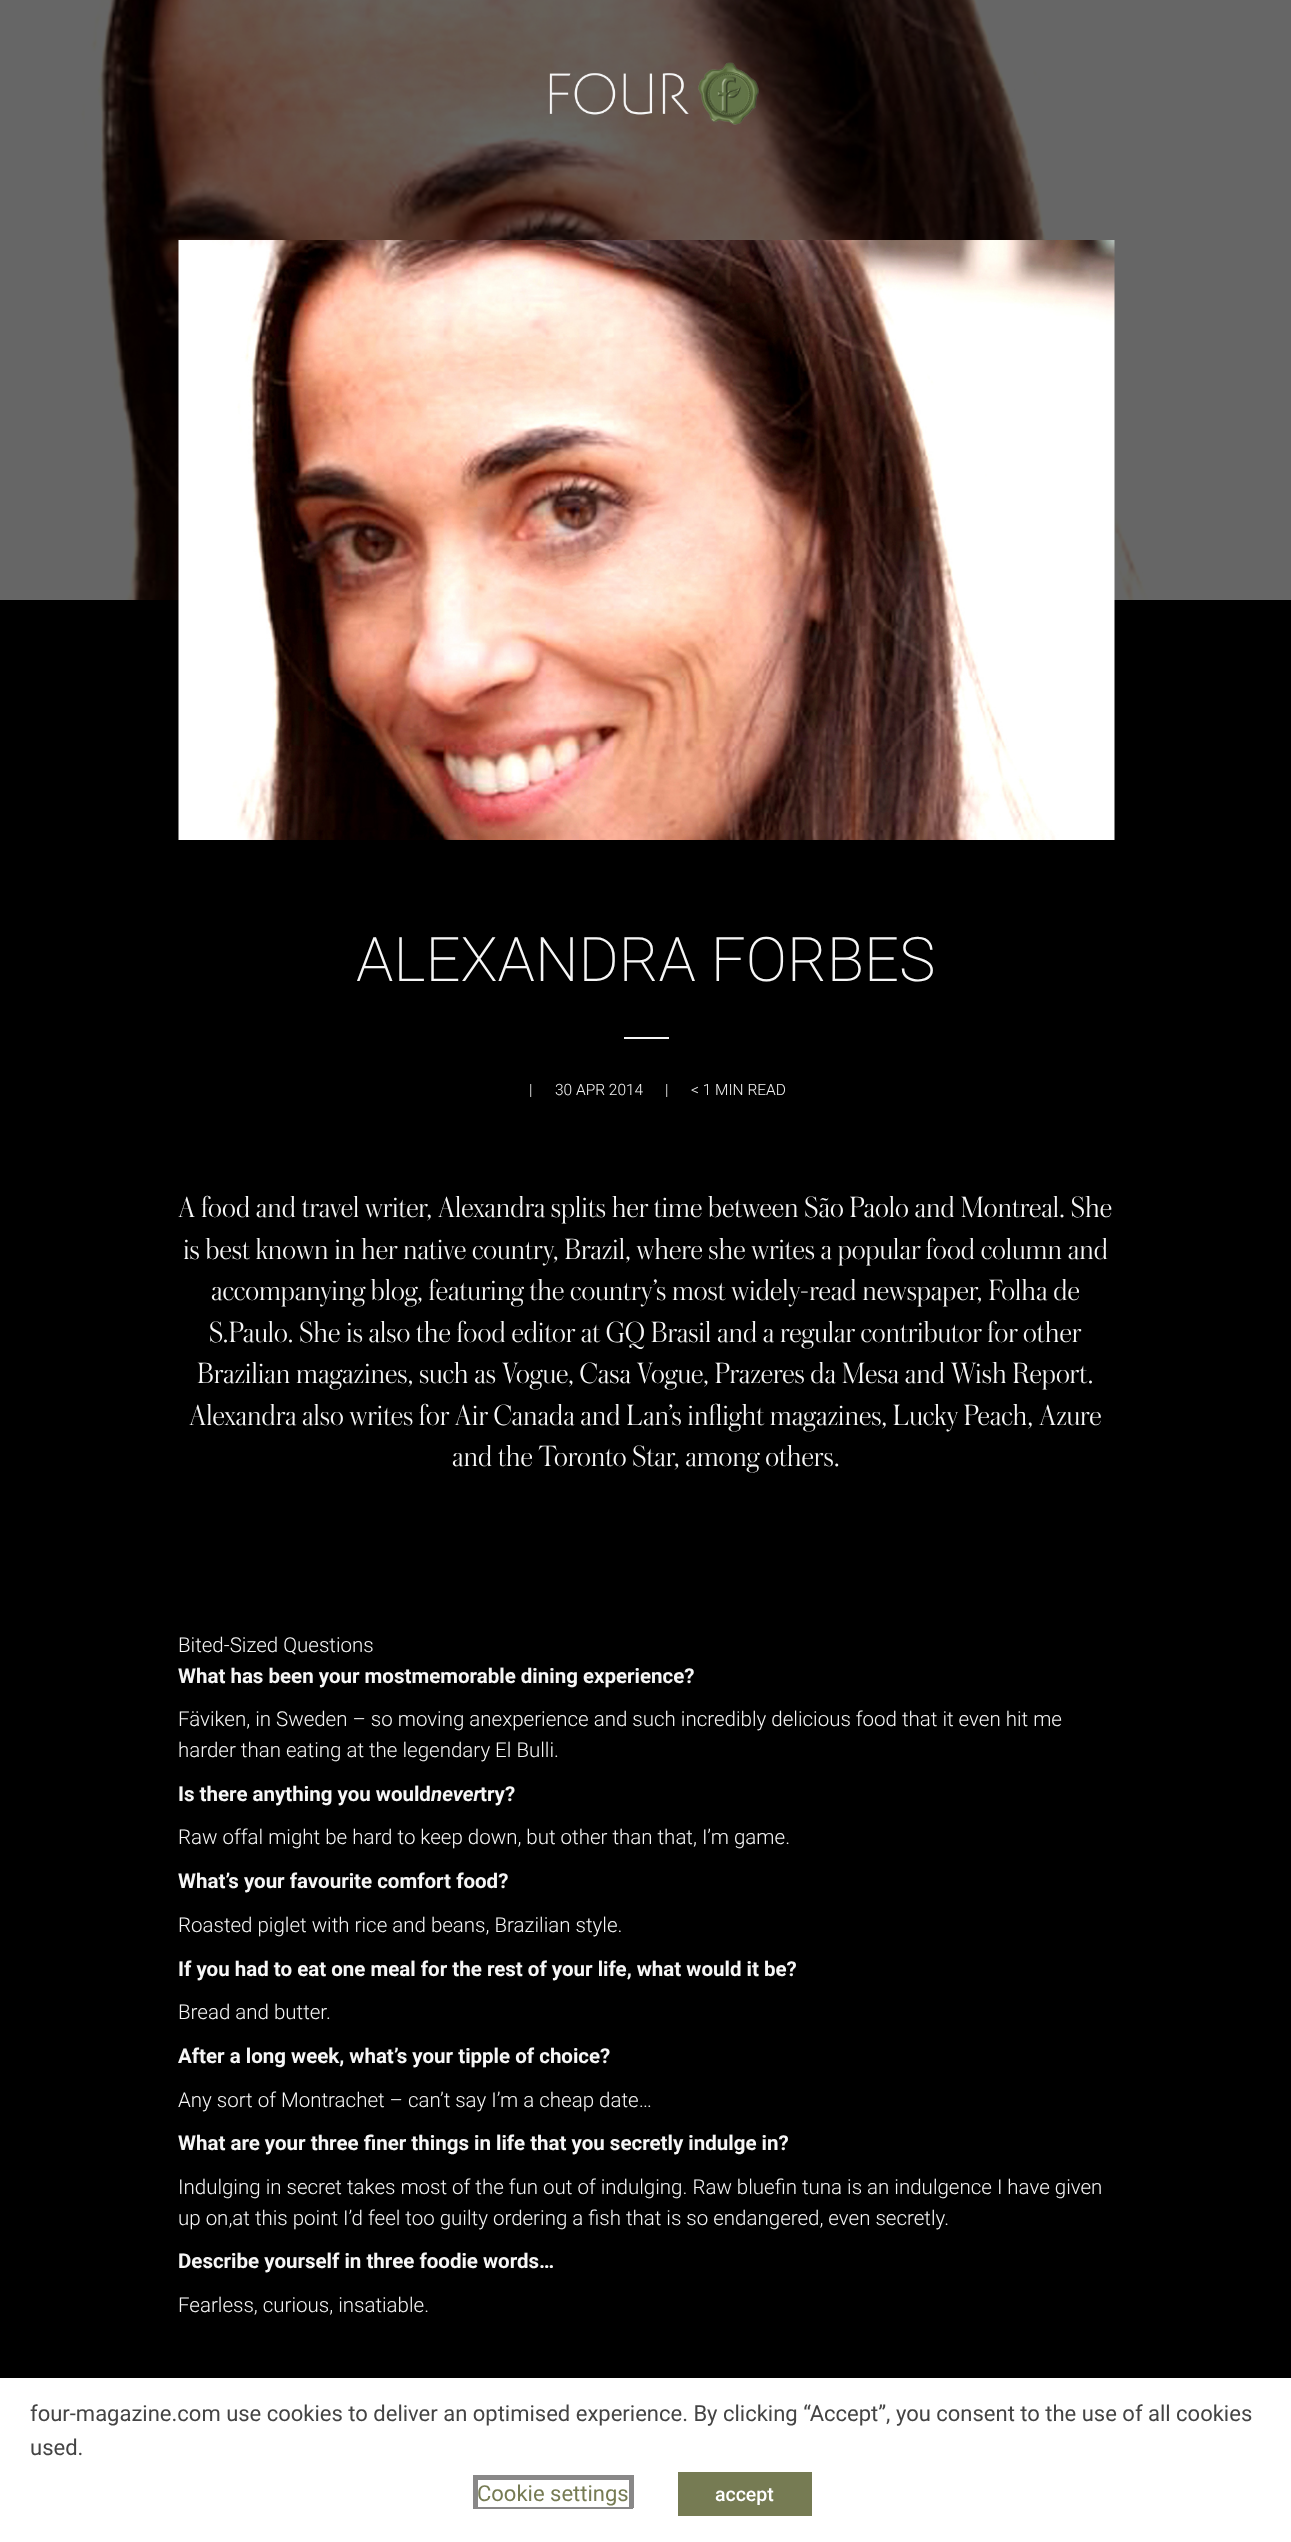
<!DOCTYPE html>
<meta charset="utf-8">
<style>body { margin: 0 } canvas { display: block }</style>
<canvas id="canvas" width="1291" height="2542"></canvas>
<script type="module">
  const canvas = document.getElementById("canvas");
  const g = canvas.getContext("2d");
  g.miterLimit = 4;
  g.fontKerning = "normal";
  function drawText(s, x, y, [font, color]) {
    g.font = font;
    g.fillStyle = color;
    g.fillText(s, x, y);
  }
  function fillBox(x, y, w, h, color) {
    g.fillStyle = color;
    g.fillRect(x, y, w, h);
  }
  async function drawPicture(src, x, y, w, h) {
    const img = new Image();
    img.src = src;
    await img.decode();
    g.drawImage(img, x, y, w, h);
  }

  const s1 = ["200 61.5px Roboto", "#F6F6F6"];
  const s2 = ["300 15.5px Roboto", "#F6F6F6"];
  const s3 = ["300 30.75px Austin", "#F6F6F6"];
  const s4 = ["300 20.5px Roboto", "#F6F6F6"];
  const s5 = ["bold 20.5px Roboto", "#F6F6F6"];
  const s6 = ["italic bold 20.5px Roboto", "#F6F6F6"];
  const s7 = ["22px Roboto", "#444444"];
  const s8 = ["22px Roboto", "#767B53"];
  const s9 = ["500 19.5px Roboto", "#FFFFFF"];

  fillBox(0, 0, 1291, 2542, "#000000");
  await drawPicture("pic2.png", 0, 0, 1291, 600);
  await drawPicture("pic1.png", 549, 62, 210, 63);
  await drawPicture("pic3.png", 178, 240, 937, 600);
  drawText("ALEXANDRA FORBES", 356, 981, s1);
  fillBox(624, 1037, 45, 2, "#F6F6F6");
  drawText("|", 529, 1095, s2);
  drawText("30 APR 2014", 555, 1095, s2);
  drawText("|", 665, 1095, s2);
  drawText("< 1 MIN READ", 691, 1095, s2);
  drawText("A food and travel writer, Alexandra splits her time between São Paolo and Montreal. She", 178, 1217, s3);
  drawText("is best known in her native country, Brazil, where she writes a popular food column and", 183, 1259, s3);
  drawText("accompanying blog, featuring the country’s most widely-read newspaper, Folha de", 211, 1300, s3);
  drawText("S.Paulo. She is also the food editor at GQ Brasil and a regular contributor for other", 209, 1342, s3);
  drawText("Brazilian magazines, such as Vogue, Casa Vogue, Prazeres da Mesa and Wish Report.", 197, 1383, s3);
  drawText("Alexandra also writes for Air Canada and Lan’s inflight magazines, Lucky Peach, Azure", 189, 1425, s3);
  drawText("and the Toronto Star, among others.", 452, 1466, s3);
  drawText("Bited-Sized Questions", 178, 1652, s4);
  drawText("What has been your mostmemorable dining experience?", 178, 1683, s5);
  drawText("Fäviken, in Sweden – so moving anexperience and such incredibly delicious food that it even hit me", 178, 1726, s4);
  drawText("harder than eating at the legendary El Bulli.", 178, 1757, s4);
  drawText("Is there anything you would", 178, 1801, s5);
  drawText("never", 431, 1801, s6);
  drawText("try?", 480, 1801, s5);
  drawText("Raw offal might be hard to keep down, but other than that, I’m game.", 178, 1844, s4);
  drawText("What’s your favourite comfort food?", 178, 1888, s5);
  drawText("Roasted piglet with rice and beans, Brazilian style.", 178, 1932, s4);
  drawText("If you had to eat one meal for the rest of your life, what would it be?", 178, 1976, s5);
  drawText("Bread and butter.", 178, 2019, s4);
  drawText("After a long week, what’s your tipple of choice?", 178, 2063, s5);
  drawText("Any sort of Montrachet – can’t say I’m a cheap date…", 178, 2107, s4);
  drawText("What are your three finer things in life that you secretly indulge in?", 178, 2150, s5);
  drawText("Indulging in secret takes most of the fun out of indulging. Raw bluefin tuna is an indulgence I have given", 178, 2194, s4);
  drawText("up on,at this point I’d feel too guilty ordering a fish that is so endangered, even secretly.", 178, 2225, s4);
  drawText("Describe yourself in three foodie words…", 178, 2268, s5);
  drawText("Fearless, curious, insatiable.", 178, 2312, s4);
  fillBox(0, 2378, 1291, 164, "#FFFFFF");
  drawText("four-magazine.com use cookies to deliver an optimised experience. By clicking “Accept”, you consent to the use of all cookies", 30, 2421, s7);
  drawText("used.", 30, 2455, s7);
  drawText("Cookie settings", 477, 2501, s8);
  fillBox(473, 2475, 160, 5, "#898888");
  fillBox(629, 2475, 5, 33, "#898888");
  fillBox(473, 2507, 160, 2, "#898888");
  fillBox(473, 2475, 5, 33, "#898888");
  fillBox(678, 2472, 134, 44, "#767B53");
  drawText("accept", 715, 2501, s9);
</script>
